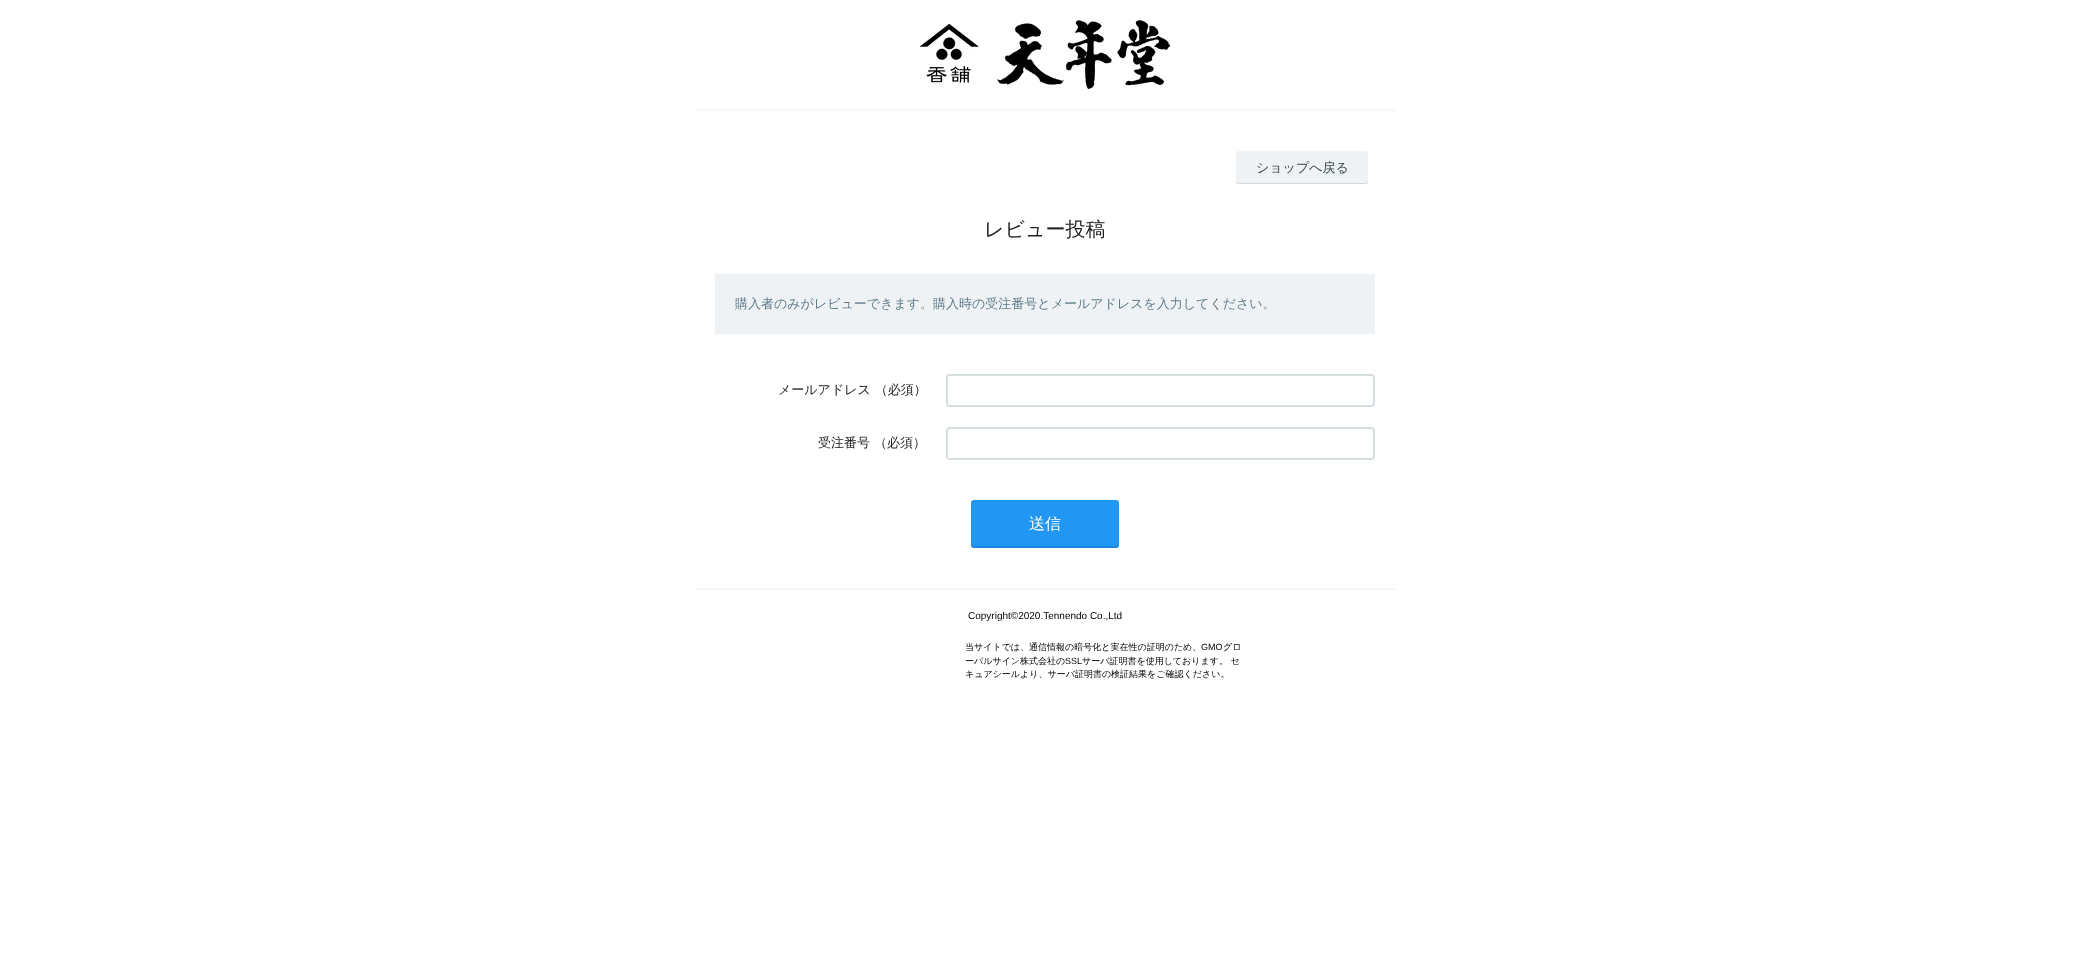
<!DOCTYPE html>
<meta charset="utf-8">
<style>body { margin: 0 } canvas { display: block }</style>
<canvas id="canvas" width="2090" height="976"></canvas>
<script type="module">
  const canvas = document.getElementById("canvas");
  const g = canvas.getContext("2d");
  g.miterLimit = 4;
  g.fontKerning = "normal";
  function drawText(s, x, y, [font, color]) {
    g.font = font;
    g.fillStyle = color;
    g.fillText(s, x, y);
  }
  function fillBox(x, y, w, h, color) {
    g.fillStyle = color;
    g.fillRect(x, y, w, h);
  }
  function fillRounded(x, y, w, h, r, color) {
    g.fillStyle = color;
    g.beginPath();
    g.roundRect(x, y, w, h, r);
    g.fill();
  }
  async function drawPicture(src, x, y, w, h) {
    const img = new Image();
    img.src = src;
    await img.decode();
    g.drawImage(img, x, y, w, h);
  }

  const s1 = ["500 13px WenQuanYi Zen Hei", "#35454C"];
  const s2 = ["500 20px WenQuanYi Zen Hei", "#222222"];
  const s3 = ["500 13px WenQuanYi Zen Hei", "#607D8B"];
  const s4 = ["500 13px WenQuanYi Zen Hei", "#222222"];
  const s5 = ["500 16px WenQuanYi Zen Hei", "#FFFFFF"];
  const s6 = ["10px Liberation Sans", "#000000"];
  const s7 = ["500 9px WenQuanYi Zen Hei", "#000000"];
  const s8 = ["9px Liberation Sans", "#000000"];

  fillBox(0, 0, 2090, 976, "#FFFFFF");
  await drawPicture("pic1.png", 920, 20, 250, 69);
  fillBox(695, 109, 700, 2, "#F6F6F6");
  fillBox(695, 588, 700, 2, "#F6F6F6");
  fillRounded(1236, 151, 132, 33, 3, "#EFF2F4");
  g.fillStyle = "rgba(0, 0, 0, 0.1)";
  g.beginPath();
  g.moveTo(1236, 180);
  g.bezierCurveTo(1236, 182, 1236, 184, 1238, 184);
  g.lineTo(1366, 184);
  g.bezierCurveTo(1368, 184, 1368, 182, 1368, 180);
  g.bezierCurveTo(1368, 181, 1367, 183, 1365, 183);
  g.lineTo(1239, 183);
  g.bezierCurveTo(1237, 183, 1236, 181, 1236, 180);
  g.closePath();
  g.fill();
  drawText("ショップへ戻る", 1256, 172, s1);
  drawText("レビュー投稿", 984, 236, s2);
  fillBox(715, 274, 660, 60, "#EFF2F4");
  drawText("購入者のみがレビューできます。購入時の受注番号とメールアドレスを入力してください。", 735, 308, s3);
  drawText("メールアドレス （必須）", 778, 394, s4);
  g.beginPath();
  g.roundRect(947, 375, 427, 31, 3);
  g.strokeStyle = "#D7DEE2";
  g.lineWidth = 2;
  g.stroke();
  drawText("受注番号 （必須）", 818, 447, s4);
  g.beginPath();
  g.roundRect(947, 428, 427, 31, 3);
  g.stroke();
  fillRounded(971, 500, 148, 48, 3, "#2196F3");
  g.fillStyle = "rgba(0, 0, 0, 0.1)";
  g.beginPath();
  g.moveTo(971, 543);
  g.lineTo(971, 545);
  g.bezierCurveTo(971, 547, 972, 548, 974, 548);
  g.lineTo(1116, 548);
  g.bezierCurveTo(1118, 548, 1119, 547, 1119, 545);
  g.lineTo(1119, 543);
  g.bezierCurveTo(1119, 545, 1118, 546, 1116, 546);
  g.lineTo(974, 546);
  g.bezierCurveTo(972, 546, 971, 545, 971, 543);
  g.closePath();
  g.fill();
  drawText("送信", 1029, 529, s5);
  drawText("Copyright©2020.Tennendo Co.,Ltd", 968, 619, s6);
  drawText("当サイトでは、通信情報の暗号化と実在性の証明のため、", 965, 650, s7);
  drawText("GMO", 1201, 650, s8);
  drawText("グロ", 1223, 650, s7);
  drawText("ーバルサイン株式会社の", 965, 664, s7);
  drawText("SSL", 1065, 664, s8);
  drawText("サーバ証明書を使用しております。 セ", 1082, 664, s7);
  drawText("キュアシールより、サーバ証明書の検証結果をご確認ください。", 965, 677, s7);
</script>
